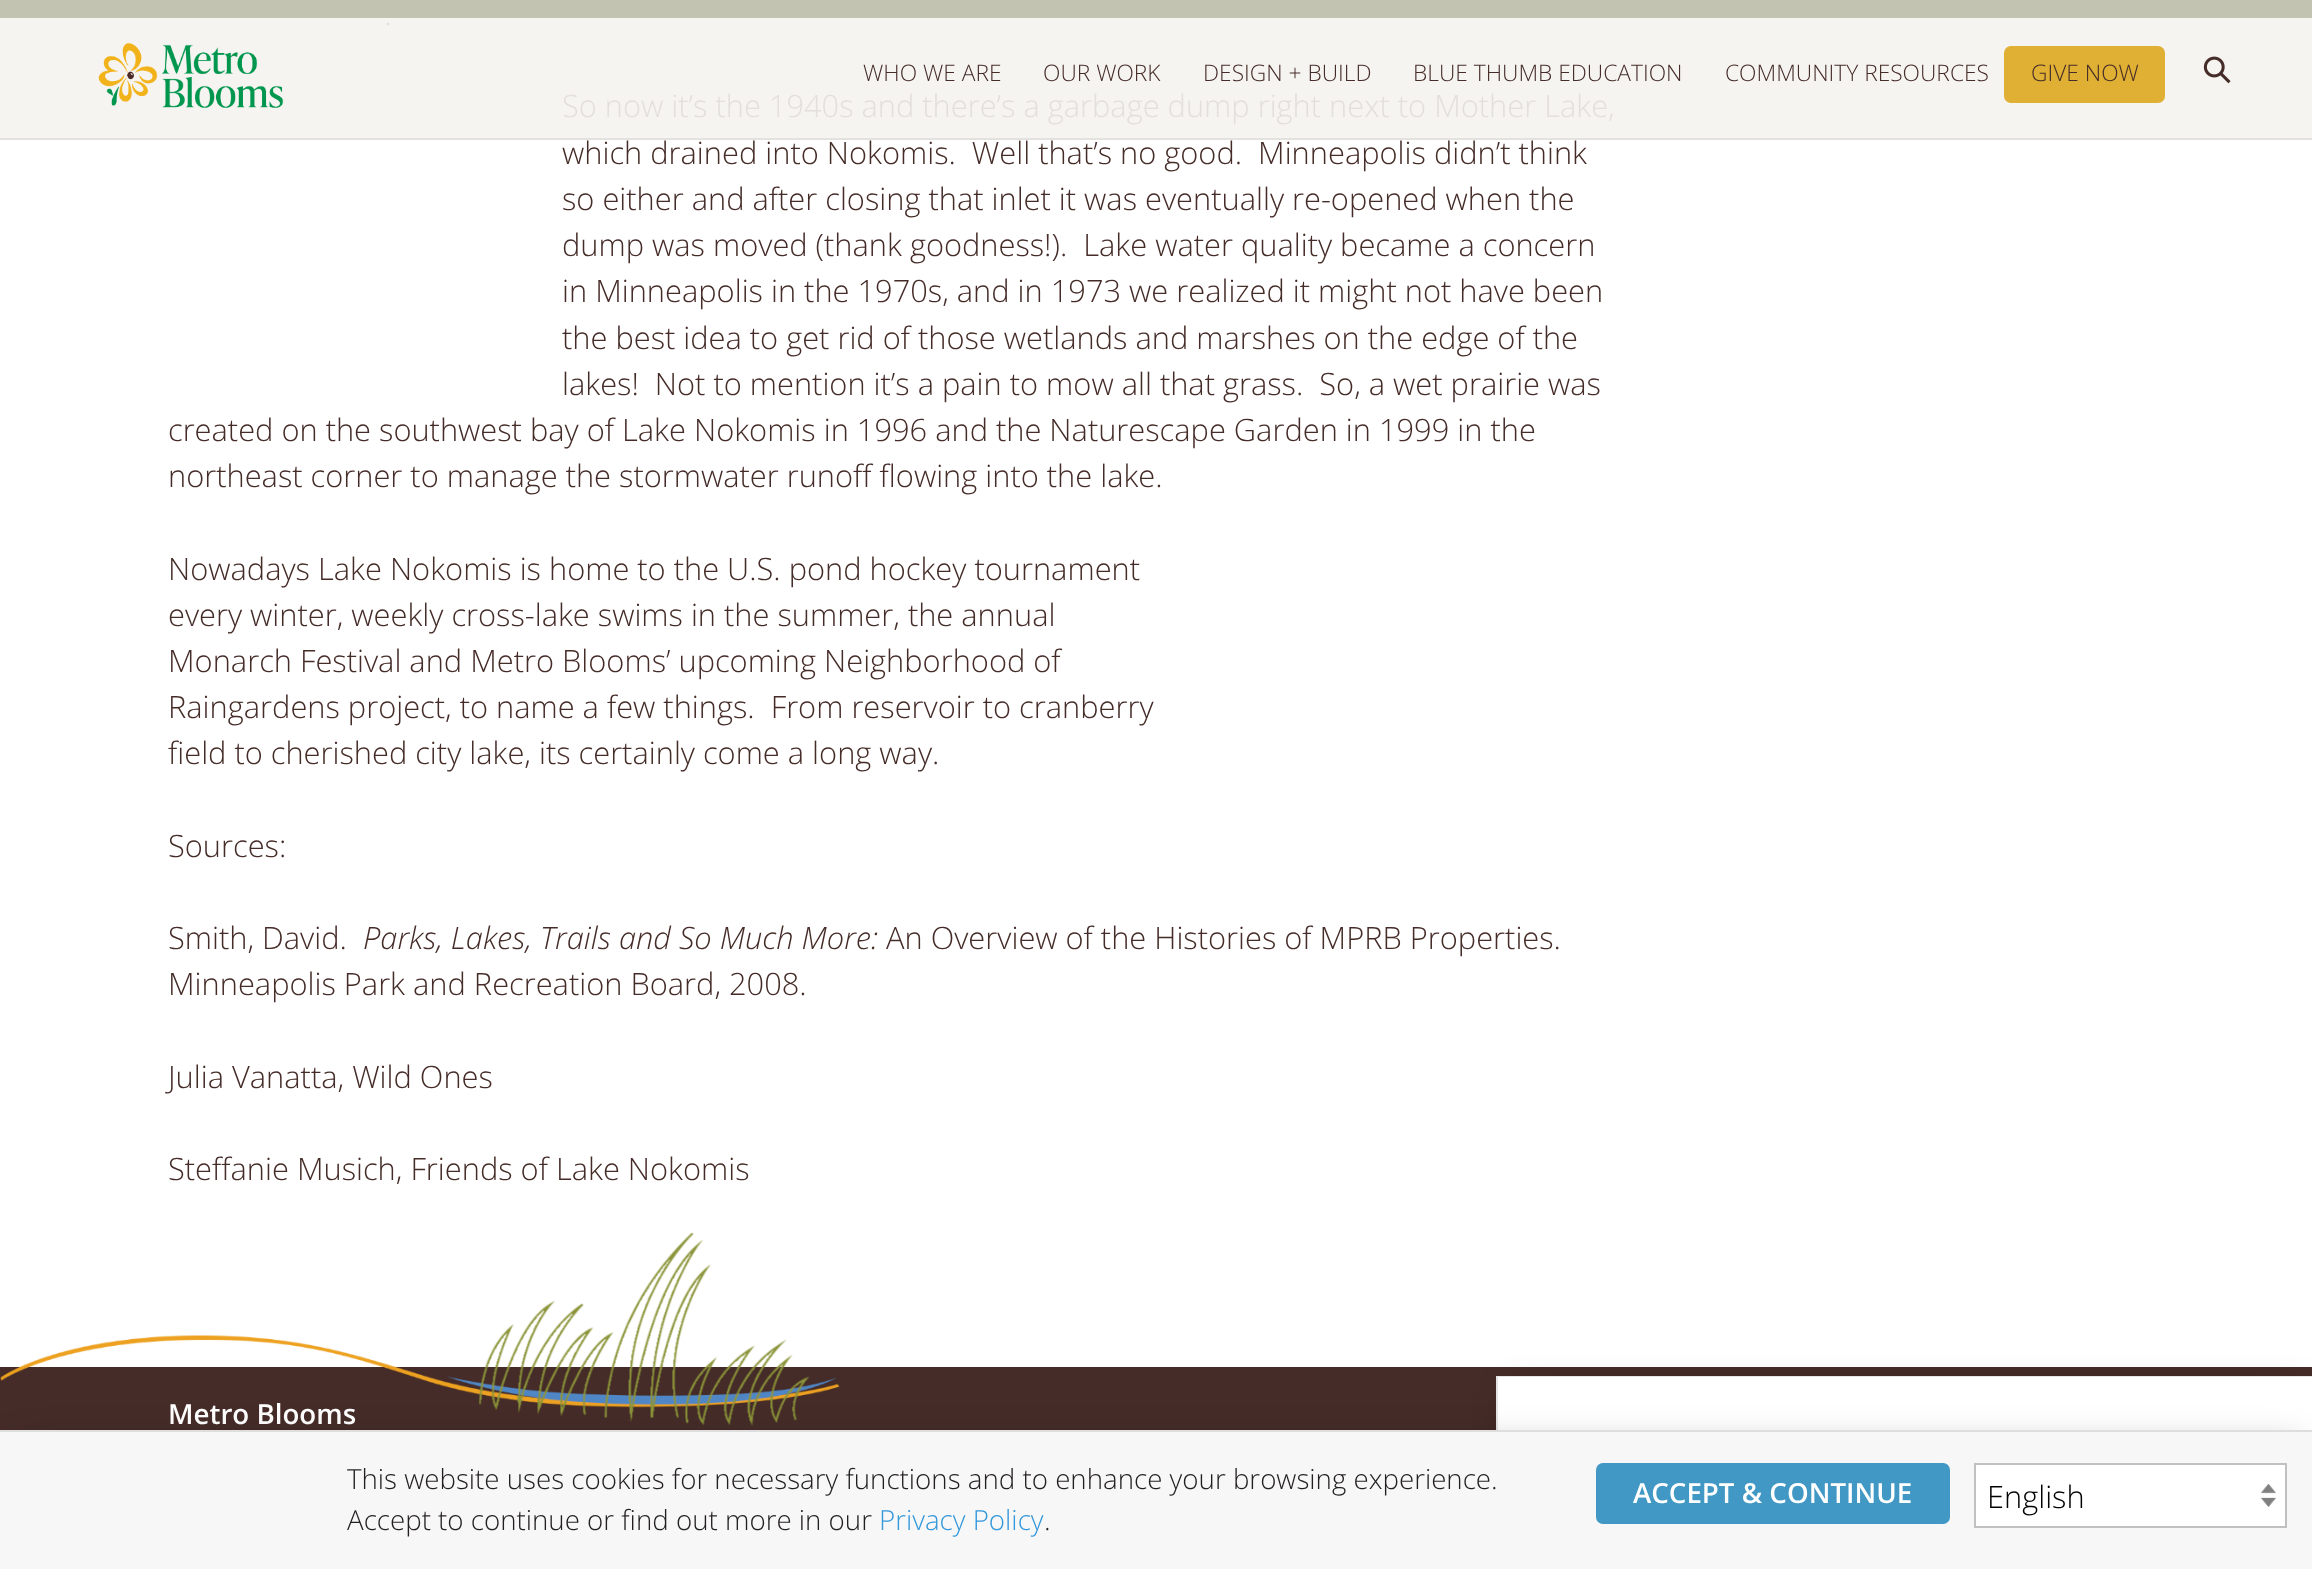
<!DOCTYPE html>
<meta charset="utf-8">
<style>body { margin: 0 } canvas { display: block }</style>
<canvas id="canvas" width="2312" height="1569"></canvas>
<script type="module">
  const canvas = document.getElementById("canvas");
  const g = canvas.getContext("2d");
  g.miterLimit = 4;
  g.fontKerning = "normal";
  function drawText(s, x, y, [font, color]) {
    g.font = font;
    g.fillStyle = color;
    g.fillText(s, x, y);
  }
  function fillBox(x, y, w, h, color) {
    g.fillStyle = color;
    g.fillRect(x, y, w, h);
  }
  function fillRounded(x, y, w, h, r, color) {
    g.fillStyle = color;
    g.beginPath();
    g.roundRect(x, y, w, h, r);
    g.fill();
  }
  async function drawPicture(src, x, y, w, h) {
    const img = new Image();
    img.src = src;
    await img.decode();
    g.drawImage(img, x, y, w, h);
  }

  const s1 = ["300 30.8px Open Sans", "#E3DFDB"];
  const s2 = ["300 30.8px Open Sans", "#452C28"];
  const s3 = ["italic 300 30.8px Open Sans", "#452C28"];
  const s4 = ["300 22.75px Open Sans", "#452C28"];
  const s5 = ["600 27.7px Open Sans", "#FFFFFF"];
  const s6 = ["300 27.7px Open Sans", "#231F20"];
  const s7 = ["300 27.7px Open Sans", "#3498DB"];
  const s8 = ["300 30.8px Open Sans", "#000000"];

  fillBox(0, 0, 2312, 1569, "#FFFFFF");
  fillBox(0, 18, 2312, 120, "#F6F4F1");
  drawText(".", 384, 25, s1);
  drawText("So now it’s the 1940s and there’s a garbage dump right next to Mother Lake,", 562, 117, s1);
  drawText("which drained into Nokomis.  Well that’s no good.  Minneapolis didn’t think", 562, 164, s2);
  drawText("so either and after closing that inlet it was eventually re-opened when the", 562, 210, s2);
  drawText("dump was moved (thank goodness!).  Lake water quality became a concern", 562, 256, s2);
  drawText("in Minneapolis in the 1970s, and in 1973 we realized it might not have been", 562, 302, s2);
  drawText("the best idea to get rid of those wetlands and marshes on the edge of the", 562, 349, s2);
  drawText("lakes!  Not to mention it’s a pain to mow all that grass.  So, a wet prairie was", 562, 395, s2);
  drawText("created on the southwest bay of Lake Nokomis in 1996 and the Naturescape Garden in 1999 in the", 168, 441, s2);
  drawText("northeast corner to manage the stormwater runoff flowing into the lake.", 168, 487, s2);
  drawText("Nowadays Lake Nokomis is home to the U.S. pond hockey tournament", 168, 580, s2);
  drawText("every winter, weekly cross-lake swims in the summer, the annual", 168, 626, s2);
  drawText("Monarch Festival and Metro Blooms’ upcoming Neighborhood of", 168, 672, s2);
  drawText("Raingardens project, to name a few things.  From reservoir to cranberry", 168, 718, s2);
  drawText("field to cherished city lake, its certainly come a long way.", 168, 764, s2);
  drawText("Sources:", 168, 857, s2);
  drawText("Smith, David.", 168, 949, s2);
  drawText("Parks, Lakes, Trails and So Much More:", 363, 949, s3);
  drawText("An Overview of the Histories of MPRB Properties.", 886, 949, s2);
  drawText("Minneapolis Park and Recreation Board, 2008.", 168, 995, s2);
  drawText("Julia Vanatta, Wild Ones", 168, 1088, s2);
  drawText("Steffanie Musich, Friends of Lake Nokomis", 168, 1180, s2);
  fillBox(0, 0, 2312, 18, "#C2C3B0");
  fillBox(0, 138, 2312, 2, "#E4E2DF");
  await drawPicture("pic1.png", 98, 42, 186, 66);
  drawText("WHO WE ARE", 863, 81, s4);
  drawText("OUR WORK", 1043, 81, s4);
  drawText("DESIGN + BUILD", 1203, 81, s4);
  drawText("BLUE THUMB EDUCATION", 1413, 81, s4);
  drawText("COMMUNITY RESOURCES", 1725, 81, s4);
  fillRounded(2004, 46, 161, 57, 7, "#E0B034");
  drawText("GIVE NOW", 2031, 81, s4);
  await drawPicture("pic2.png", 2203, 56, 28, 28);
  fillBox(0, 1367, 2312, 63, "#452C28");
  drawText("Metro Blooms", 168, 1424, s5);
  await drawPicture("pic3.png", 0, 1232, 840, 194);
  g.fillStyle = "rgba(0, 0, 0, 0.25)";
  g.filter = "blur(17.5px)";
  g.beginPath();
  g.rect(1510, 1390, 790, 147);
  g.fill();
  g.filter = "none";
  fillBox(1496, 1376, 816, 54, "#FFFFFF");
  g.fillStyle = "rgba(0, 0, 0, 0.1)";
  g.beginPath();
  g.moveTo(1496, 1376);
  g.lineTo(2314, 1376);
  g.lineTo(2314, 1550);
  g.lineTo(1503, 1550);
  g.bezierCurveTo(1499, 1550, 1496, 1547, 1496, 1544);
  g.closePath();
  g.moveTo(1498, 1377);
  g.lineTo(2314, 1377);
  g.lineTo(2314, 1549);
  g.lineTo(1503, 1549);
  g.bezierCurveTo(1500, 1549, 1498, 1546, 1498, 1544);
  g.closePath();
  g.fill("evenodd");
  g.fillStyle = "rgba(0, 0, 0, 0.25)";
  g.filter = "blur(17.5px)";
  g.beginPath();
  g.rect(14, 1444, 2286, 112);
  g.fill();
  g.filter = "none";
  fillBox(0, 1432, 2312, 137, "#F7F7F7");
  fillBox(0, 1430, 2312, 2, "#DEDEDE");
  drawText("This website uses cookies for necessary functions and to enhance your browsing experience.", 347, 1489, s6);
  drawText("Accept to continue or find out more in our", 347, 1530, s6);
  drawText("Privacy Policy", 879, 1530, s7);
  drawText(".", 1044, 1530, s6);
  fillRounded(1596, 1463, 354, 61, 7, "#4298C4");
  drawText("ACCEPT & CONTINUE", 1633, 1503, s5);
  fillBox(1976, 1465, 309, 61, "#FFFFFF");
  await drawPicture("pic4.png", 2261, 1484, 15, 23);
  g.strokeStyle = "#C0C0C0";
  g.lineWidth = 2;
  g.strokeRect(1975, 1464, 311, 63);
  drawText("English", 1987, 1508, s8);
</script>
